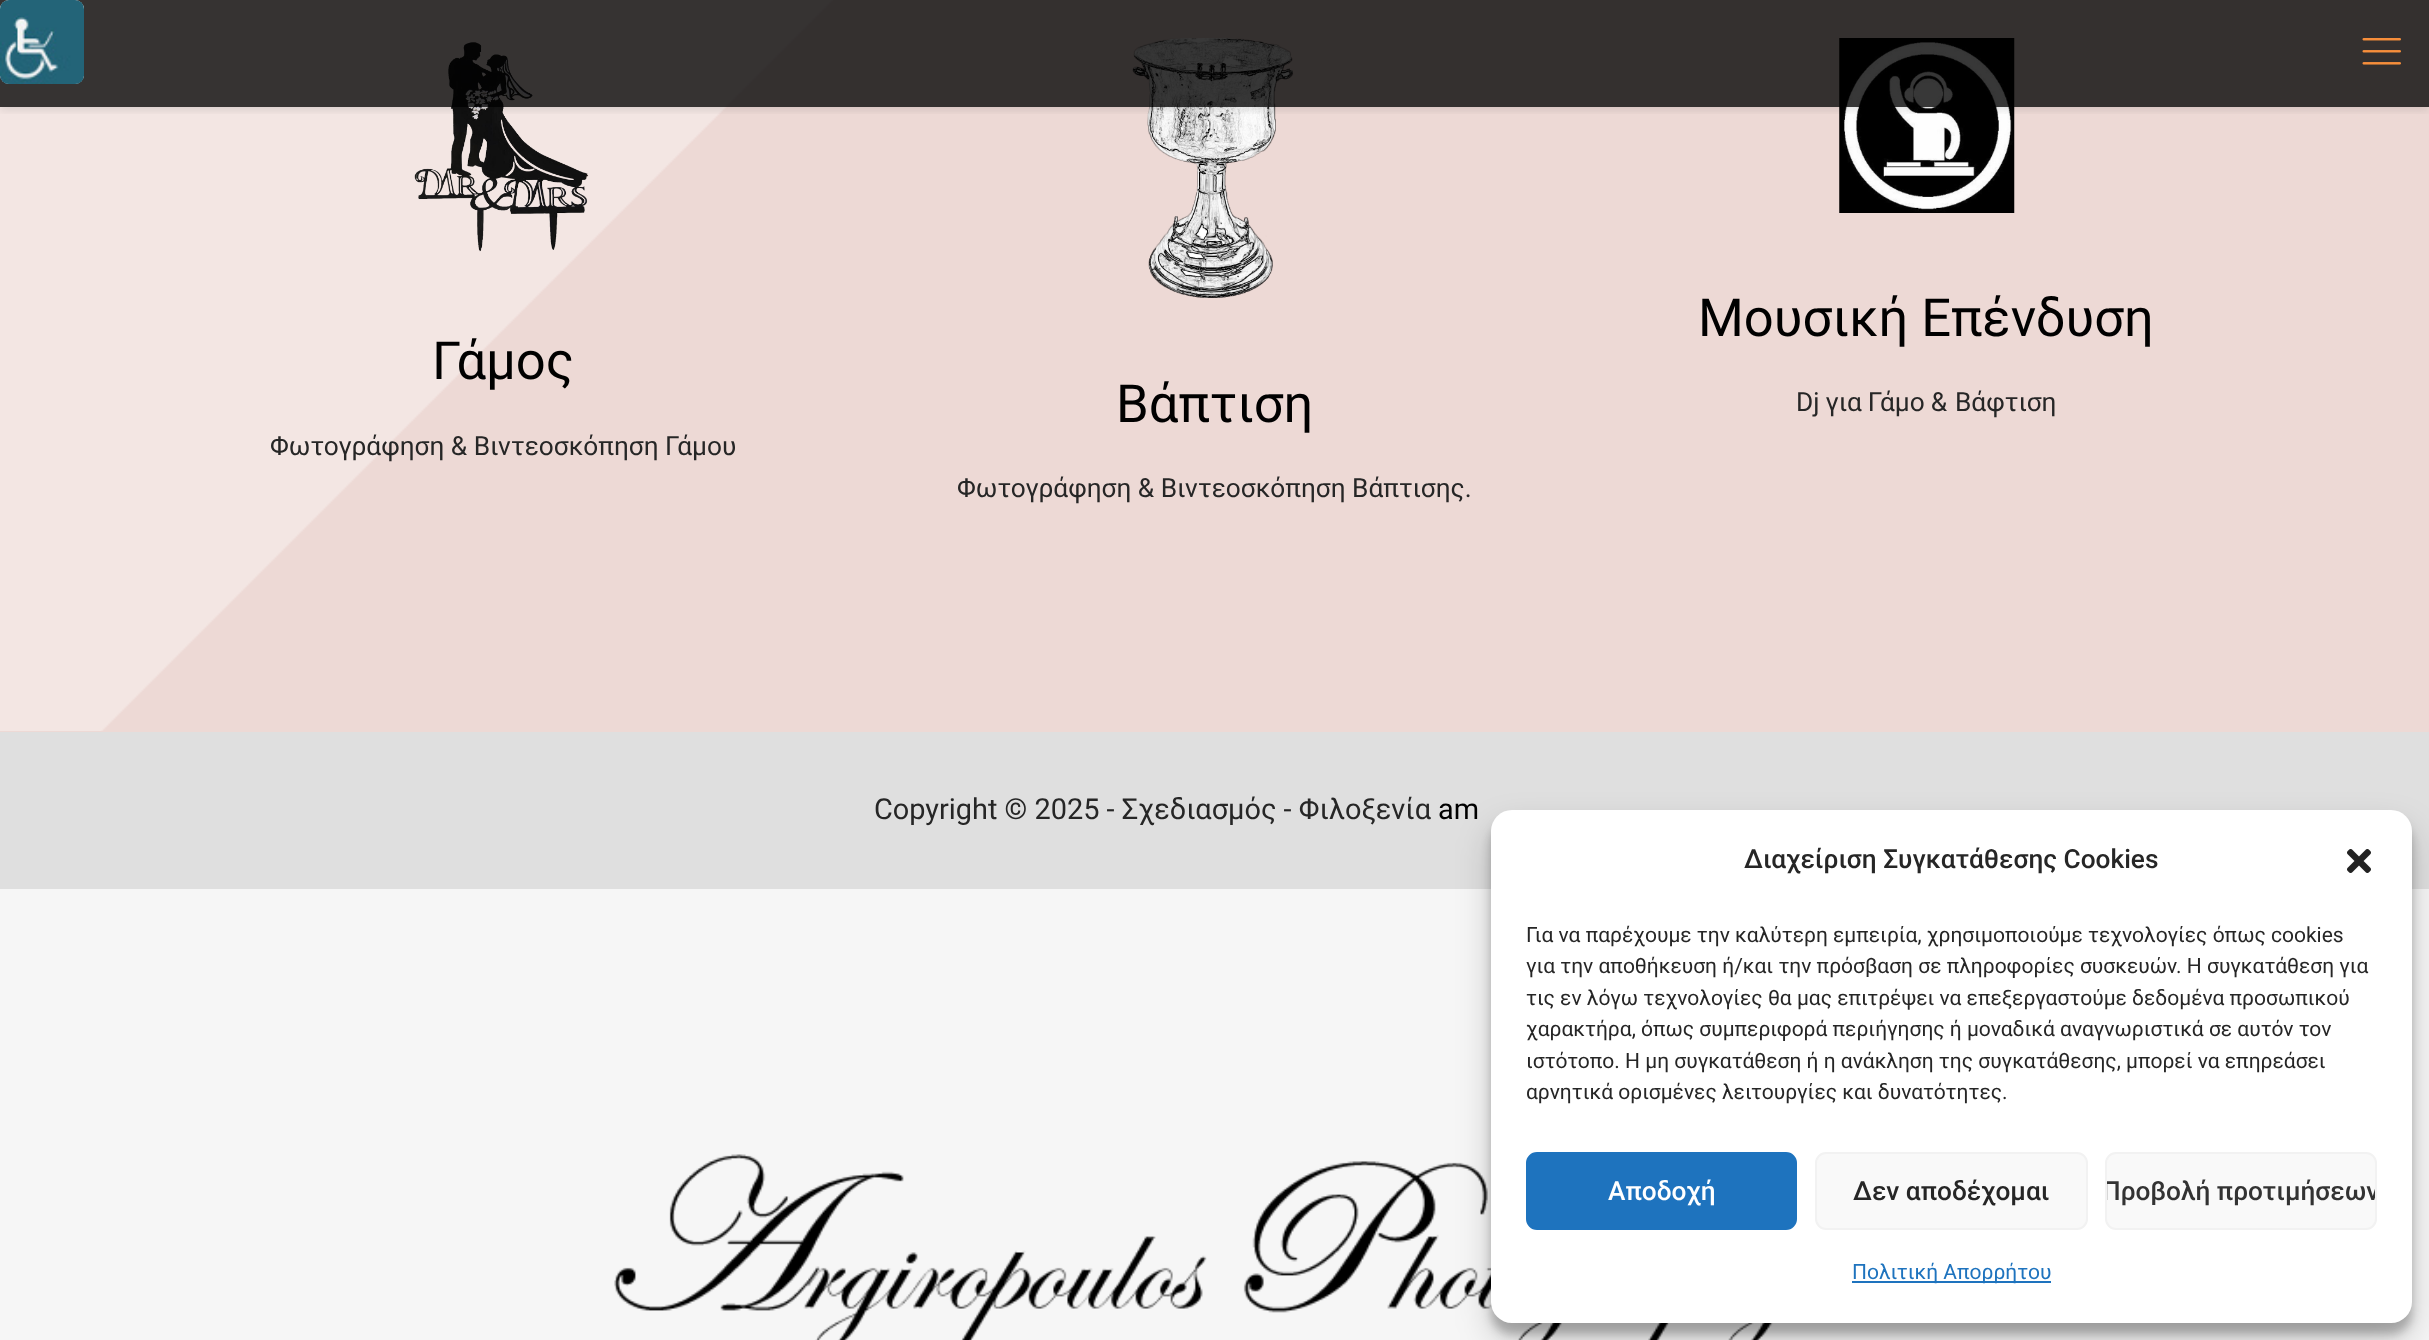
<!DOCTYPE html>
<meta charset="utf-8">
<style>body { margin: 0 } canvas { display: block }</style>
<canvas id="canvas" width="2429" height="1340"></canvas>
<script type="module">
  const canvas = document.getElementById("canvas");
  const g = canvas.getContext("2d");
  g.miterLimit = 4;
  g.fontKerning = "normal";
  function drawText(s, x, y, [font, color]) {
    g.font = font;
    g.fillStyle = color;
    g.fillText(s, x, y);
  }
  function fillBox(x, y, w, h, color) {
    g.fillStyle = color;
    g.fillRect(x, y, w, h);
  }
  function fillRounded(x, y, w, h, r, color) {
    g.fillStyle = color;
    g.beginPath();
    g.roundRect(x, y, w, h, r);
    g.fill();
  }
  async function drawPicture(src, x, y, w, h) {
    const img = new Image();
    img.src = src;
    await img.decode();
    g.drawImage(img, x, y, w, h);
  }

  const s1 = ["52.5px Roboto", "#000000"];
  const s2 = ["26.25px Roboto", "#262626"];
  const s3 = ["28.9px Roboto", "#262626"];
  const s4 = ["28.9px Roboto", "#000000"];
  const s5 = ["500 26.25px Roboto", "#262626"];
  const s6 = ["21px Roboto", "#262626"];
  const s7 = ["500 26.25px Roboto", "#FFFFFF"];
  const s8 = ["500 26.25px Roboto", "#333333"];
  const s9 = ["21px Roboto", "#1E73BE"];

  fillBox(0, 0, 2429, 1340, "#EDD9D5");
  await drawPicture("pic3.png", 0, 0, 833, 731);
  await drawPicture("pic4.png", 414, 42, 175, 210);
  await drawPicture("pic5.png", 1132, 38, 162, 260);
  await drawPicture("pic6.png", 1839, 38, 176, 175);
  g.save();
  g.beginPath();
  g.rect(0, 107, 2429, 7);
  g.clip();
  g.fillStyle = "rgba(0, 0, 0, 0.1)";
  g.filter = "blur(4.5px)";
  g.beginPath();
  g.rect(0, 4, 2429, 106);
  g.fill();
  g.filter = "none";
  g.restore();
  fillBox(0, 0, 2429, 107, "rgba(0, 0, 0, 0.78)");
  fillRounded(0, 0, 84, 84, 9, "#FFFFFF");
  await drawPicture("pic1.png", 0, 0, 84, 84);
  await drawPicture("pic2.png", 2362, 38, 39, 27);
  drawText("Γάμος", 432, 379, s1);
  drawText("Φωτογράφηση & Βιντεοσκόπηση Γάμου", 270, 455, s2);
  drawText("Βάπτιση", 1116, 422, s1);
  drawText("Φωτογράφηση & Βιντεοσκόπηση Βάπτισης.", 957, 497, s2);
  drawText("Μουσική Επένδυση", 1698, 336, s1);
  g.wordSpacing = "-0.5px";
  drawText("Dj για Γάμο &", 1796, 411, s2);
  g.wordSpacing = "0px";
  drawText("Βάφτιση", 1955, 411, s2);
  fillBox(0, 889, 2429, 451, "#F6F6F6");
  fillBox(0, 732, 2429, 157, "#DFDFDF");
  drawText("Copyright © 2025 - Σχεδιασμός - Φιλοξενία", 874, 819, s3);
  drawText("am", 1438, 819, s4);
  await drawPicture("pic7.png", 614, 1154, 1159, 186);
  g.fillStyle = "rgba(0, 0, 0, 0.23)";
  g.filter = "blur(5px)";
  g.beginPath();
  g.roundRect(1491, 821, 921, 513, 21);
  g.fill();
  g.filter = "none";
  g.fillStyle = "rgba(0, 0, 0, 0.19)";
  g.filter = "blur(17.5px)";
  g.beginPath();
  g.roundRect(1491, 828, 921, 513, 21);
  g.fill();
  g.filter = "none";
  fillRounded(1491, 810, 921, 513, 21, "#FFFFFF");
  drawText("Διαχείριση Συγκατάθεσης Cookies", 1744, 868, s5);
  await drawPicture("pic8.png", 2347, 849, 24, 24);
  drawText("Για να παρέχουμε την καλύτερη εμπειρία, χρησιμοποιούμε τεχνολογίες όπως cookies", 1526, 942, s6);
  drawText("για την αποθήκευση ή/και την πρόσβαση σε πληροφορίες συσκευών. Η συγκατάθεση για", 1526, 973, s6);
  drawText("τις εν λόγω τεχνολογίες θα μας επιτρέψει να επεξεργαστούμε δεδομένα προσωπικού", 1526, 1005, s6);
  drawText("χαρακτήρα, όπως συμπεριφορά περιήγησης ή μοναδικά αναγνωριστικά σε αυτόν τον", 1526, 1036, s6);
  drawText("ιστότοπο. Η μη συγκατάθεση ή η ανάκληση της συγκατάθεσης, μπορεί να επηρεάσει", 1526, 1068, s6);
  drawText("αρνητικά ορισμένες λειτουργίες και δυνατότητες.", 1526, 1099, s6);
  g.fillStyle = "#1E73BE";
  g.beginPath();
  g.roundRect(1527, 1153, 269, 76, 10);
  g.fill();
  g.strokeStyle = "#1E73BE";
  g.lineWidth = 2;
  g.stroke();
  drawText("Αποδοχή", 1608, 1200, s7);
  g.fillStyle = "#F9F9F9";
  g.beginPath();
  g.roundRect(1816, 1153, 271, 76, 10);
  g.fill();
  g.strokeStyle = "#F2F2F2";
  g.stroke();
  drawText("Δεν αποδέχομαι", 1853, 1200, s5);
  g.fillStyle = "#F9F9F9";
  g.beginPath();
  g.roundRect(2106, 1153, 270, 76, 10);
  g.fill();
  g.stroke();
  g.save();
  g.beginPath();
  g.roundRect(2107, 1153, 268, 76, 9);
  g.clip();
  drawText("Προβολή προτιμήσεων", 2102, 1200, s8);
  g.restore();
  fillBox(1852, 1281, 199, 2, "#1E73BE");
  drawText("Πολιτική Απορρήτου", 1852, 1279, s9);
</script>
